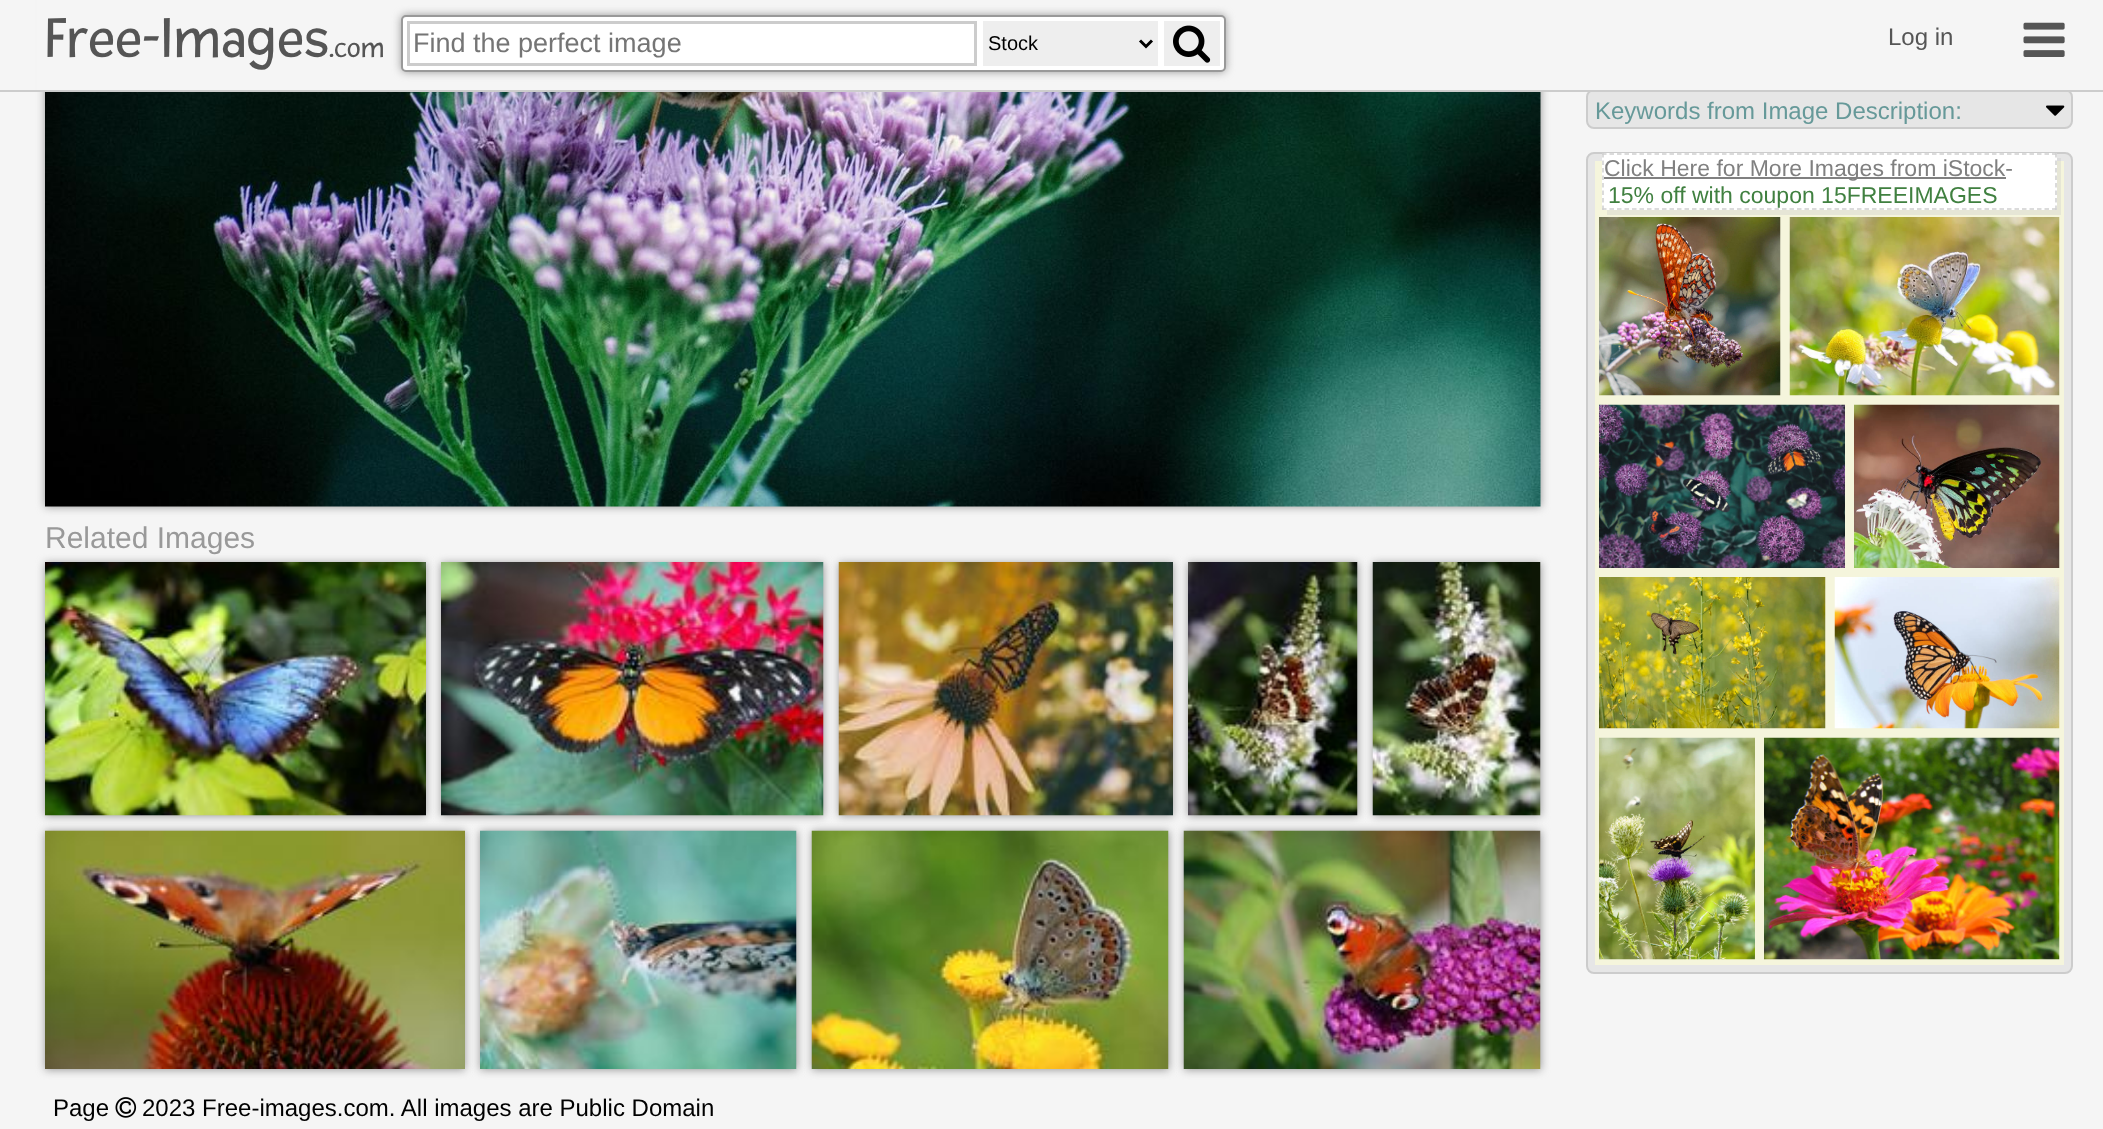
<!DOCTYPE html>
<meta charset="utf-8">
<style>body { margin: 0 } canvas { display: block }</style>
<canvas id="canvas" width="2103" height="1129"></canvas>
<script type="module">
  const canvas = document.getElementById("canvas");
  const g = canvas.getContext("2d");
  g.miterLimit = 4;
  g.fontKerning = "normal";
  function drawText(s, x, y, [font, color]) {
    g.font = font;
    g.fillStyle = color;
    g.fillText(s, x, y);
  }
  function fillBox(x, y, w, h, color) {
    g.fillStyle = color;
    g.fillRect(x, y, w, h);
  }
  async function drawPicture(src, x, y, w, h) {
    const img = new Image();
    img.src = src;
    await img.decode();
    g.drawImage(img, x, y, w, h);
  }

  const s1 = ["60px Fresca", "#555555"];
  const s2 = ["30px Fresca", "#555555"];
  const s3 = ["27px Liberation Sans", "#757575"];
  const s4 = ["20px Liberation Sans", "#000000"];
  const s5 = ["24px Liberation Sans", "#555555"];
  const s6 = ["24px Liberation Sans", "#669999"];
  const s7 = ["23px Liberation Sans", "#808080"];
  const s8 = ["23px Liberation Sans", "#408040"];
  const s9 = ["30px Liberation Sans", "#999999"];
  const s10 = ["24px Liberation Sans", "#000000"];

  fillBox(0, 0, 2103, 1129, "#F5F5F5");
  g.fillStyle = "#E6E6E6";
  g.beginPath();
  g.roundRect(1587, 90, 485, 38, 7);
  g.fill();
  g.strokeStyle = "#CCCCCC";
  g.lineWidth = 2;
  g.stroke();
  g.fillStyle = "#999999";
  g.filter = "blur(4px)";
  g.beginPath();
  g.rect(45, -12, 1496, 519);
  g.fill();
  g.filter = "none";
  fillBox(37, 0, 2032, 90, "#F5F5F5");
  fillBox(0, 90, 2103, 2, "#CCCCCC");
  drawText("Free-Images", 45, 57, s1);
  drawText(".com", 329, 57, s2);
  g.fillStyle = "#999999";
  g.filter = "blur(4px)";
  g.beginPath();
  g.roundRect(401, 15, 825, 57, 5);
  g.fill();
  g.filter = "none";
  g.fillStyle = "#FFFFFF";
  g.beginPath();
  g.roundRect(402, 16, 823, 55, 4);
  g.fill();
  g.strokeStyle = "#999999";
  g.stroke();
  g.strokeStyle = "#CCCCCC";
  g.lineWidth = 3;
  g.strokeRect(408.5, 22.5, 567, 42);
  drawText("Find the perfect image", 413, 52, s3);
  fillBox(983, 21, 175, 45, "#EEEEEE");
  g.beginPath();
  g.moveTo(1140, 40.5);
  g.lineTo(1146, 46.5);
  g.lineTo(1152, 40.5);
  g.strokeStyle = "#000000";
  g.stroke();
  drawText("Stock", 988, 50, s4);
  fillBox(1164, 21, 56, 45, "#EEEEEE");
  await drawPicture("pic1.png", 1173, 25, 38, 38);
  drawText("Log in", 1888, 45, s5);
  await drawPicture("pic2.png", 2023, 22, 42, 35);
  drawText("Keywords from Image Description:", 1595, 119, s6);
  await drawPicture("pic3.png", 2046, 105, 19, 11);
  g.fillStyle = "#E6E6E6";
  g.beginPath();
  g.roundRect(1587, 153, 485, 820, 7);
  g.fill();
  g.strokeStyle = "#CCCCCC";
  g.lineWidth = 2;
  g.stroke();
  fillBox(1595, 161, 469, 804, "#F5F5DC");
  g.fillStyle = "rgba(204, 204, 204, 0.38)";
  g.beginPath();
  g.moveTo(1607, 210);
  g.lineTo(1607, 215);
  g.lineTo(2061, 215);
  g.lineTo(2061, 158);
  g.lineTo(2056, 158);
  g.lineTo(2056, 210);
  g.closePath();
  g.fill();
  fillBox(1602, 153, 455, 57, "#FFFFFF");
  g.beginPath();
  g.moveTo(1602, 154);
  g.lineTo(2056.5, 154);
  g.strokeStyle = "#D0D0D0";
  g.lineWidth = 1.5;
  g.setLineDash([4.5, 3]);
  g.stroke();
  g.beginPath();
  g.moveTo(2056, 153);
  g.lineTo(2056, 210);
  g.stroke();
  g.beginPath();
  g.moveTo(1602, 209);
  g.lineTo(2056.5, 209);
  g.stroke();
  g.beginPath();
  g.moveTo(1603, 153);
  g.lineTo(1603, 210);
  g.stroke();
  fillBox(1604, 177, 402, 2, "#808080");
  drawText("Click Here for More Images from iStock-", 1604, 176, s7);
  drawText("15% off with coupon 15FREEIMAGES", 1608, 203, s8);
  await drawPicture("pic4.png", 1599, 217, 182, 179);
  await drawPicture("pic5.png", 1789, 217, 271, 179);
  await drawPicture("pic6.png", 1599, 404, 246, 164);
  await drawPicture("pic7.png", 1854, 404, 206, 164);
  await drawPicture("pic8.png", 1599, 577, 227, 152);
  await drawPicture("pic9.png", 1834, 577, 226, 152);
  await drawPicture("pic10.png", 1599, 737, 156, 223);
  await drawPicture("pic11.png", 1764, 737, 296, 223);
  await drawPicture("pic12.png", 45, 92, 1496, 415);
  drawText("Related Images", 45, 548, s9);
  g.filter = "blur(4px)";
  g.beginPath();
  g.rect(45, 563, 381, 253);
  g.fill();
  g.filter = "none";
  await drawPicture("pic13.png", 45, 562, 381, 254);
  g.filter = "blur(4px)";
  g.beginPath();
  g.rect(441, 563, 383, 253);
  g.fill();
  g.filter = "none";
  await drawPicture("pic14.png", 441, 562, 383, 254);
  g.filter = "blur(4px)";
  g.beginPath();
  g.rect(839, 563, 334, 253);
  g.fill();
  g.filter = "none";
  await drawPicture("pic15.png", 838, 562, 335, 254);
  g.filter = "blur(4px)";
  g.beginPath();
  g.rect(1188, 563, 170, 253);
  g.fill();
  g.filter = "none";
  await drawPicture("pic16.png", 1188, 562, 170, 254);
  g.filter = "blur(4px)";
  g.beginPath();
  g.rect(1373, 563, 168, 253);
  g.fill();
  g.filter = "none";
  await drawPicture("pic17.png", 1372, 562, 169, 254);
  g.filter = "blur(4px)";
  g.beginPath();
  g.rect(45, 831, 420, 239);
  g.fill();
  g.filter = "none";
  await drawPicture("pic18.png", 45, 830, 420, 239);
  g.filter = "blur(4px)";
  g.beginPath();
  g.rect(480, 831, 317, 239);
  g.fill();
  g.filter = "none";
  await drawPicture("pic19.png", 480, 830, 317, 239);
  g.filter = "blur(4px)";
  g.beginPath();
  g.rect(812, 831, 357, 239);
  g.fill();
  g.filter = "none";
  await drawPicture("pic20.png", 811, 830, 358, 239);
  g.filter = "blur(4px)";
  g.beginPath();
  g.rect(1184, 831, 357, 239);
  g.fill();
  g.filter = "none";
  await drawPicture("pic21.png", 1183, 830, 358, 239);
  drawText("Page", 53, 1116, s10);
  await drawPicture("pic22.png", 115, 1097, 22, 21);
  drawText("2023 Free-images.com. All images are Public Domain", 142, 1116, s10);
</script>
